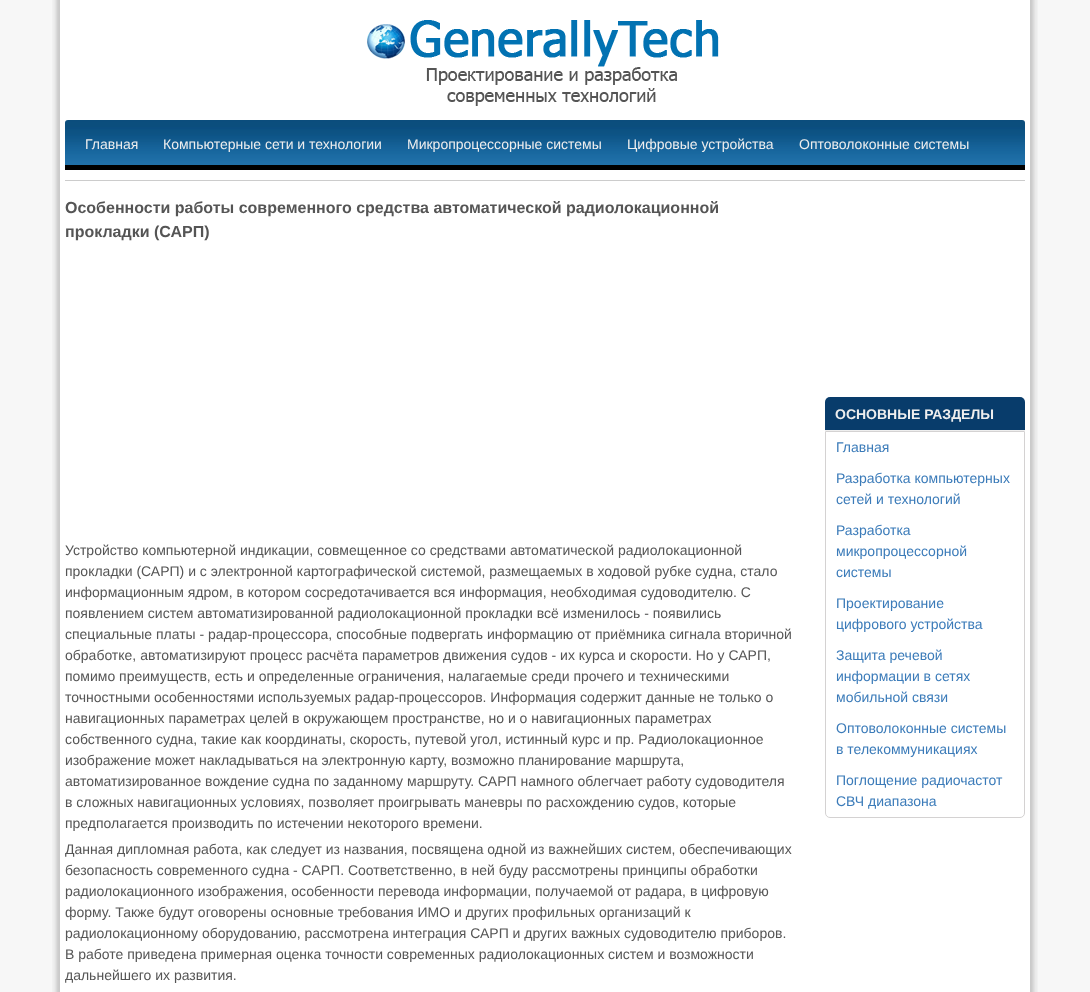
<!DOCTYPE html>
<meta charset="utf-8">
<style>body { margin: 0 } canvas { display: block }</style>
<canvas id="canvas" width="1090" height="992"></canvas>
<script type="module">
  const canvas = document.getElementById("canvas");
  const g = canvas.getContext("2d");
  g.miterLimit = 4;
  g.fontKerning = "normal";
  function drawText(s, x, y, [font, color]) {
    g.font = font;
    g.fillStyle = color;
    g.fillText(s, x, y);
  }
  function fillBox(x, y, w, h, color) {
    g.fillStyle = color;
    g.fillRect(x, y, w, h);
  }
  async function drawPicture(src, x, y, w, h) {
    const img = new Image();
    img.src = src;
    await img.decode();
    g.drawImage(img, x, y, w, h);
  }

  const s1 = ["14px Liberation Sans", "#EEEEEE"];
  const s2 = ["bold 16px Liberation Sans", "#555555"];
  const s3 = ["14px Liberation Sans", "#555555"];
  const s4 = ["bold 14px Liberation Sans", "#EEEEEE"];
  const s5 = ["14px Liberation Sans", "#3B7BB9"];

  fillBox(0, 0, 1090, 992, "#F7F7F7");
  await drawPicture("pic1.png", 52, 0, 986, 992);
  await drawPicture("pic2.png", 367, 20, 352, 86);
  await drawPicture("pic3.png", 65, 120, 960, 50);
  drawText("Главная", 85, 149, s1);
  drawText("Компьютерные сети и технологии", 163, 149, s1);
  drawText("Микропроцессорные системы", 407, 149, s1);
  drawText("Цифровые устройства", 627, 149, s1);
  drawText("Оптоволоконные системы", 799, 149, s1);
  fillBox(65, 180, 960, 1, "#CCCCCC");
  drawText("Особенности работы современного средства автоматической радиолокационной", 65, 213, s2);
  drawText("прокладки (САРП)", 65, 237, s2);
  drawText("Устройство компьютерной индикации, совмещенное со средствами автоматической радиолокационной", 65, 555, s3);
  drawText("прокладки (САРП) и с электронной картографической системой, размещаемых в ходовой рубке судна, стало", 65, 576, s3);
  drawText("информационным ядром, в котором сосредотачивается вся информация, необходимая судоводителю. С", 65, 597, s3);
  drawText("появлением систем автоматизированной радиолокационной прокладки всё изменилось - появились", 65, 618, s3);
  drawText("специальные платы - радар-процессора, способные подвергать информацию от приёмника сигнала вторичной", 65, 639, s3);
  drawText("обработке, автоматизируют процесс расчёта параметров движения судов - их курса и скорости. Но у САРП,", 65, 660, s3);
  drawText("помимо преимуществ, есть и определенные ограничения, налагаемые среди прочего и техническими", 65, 681, s3);
  drawText("точностными особенностями используемых радар-процессоров. Информация содержит данные не только о", 65, 702, s3);
  drawText("навигационных параметрах целей в окружающем пространстве, но и о навигационных параметрах", 65, 723, s3);
  drawText("собственного судна, такие как координаты, скорость, путевой угол, истинный курс и пр. Радиолокационное", 65, 744, s3);
  drawText("изображение может накладываться на электронную карту, возможно планирование маршрута,", 65, 765, s3);
  drawText("автоматизированное вождение судна по заданному маршруту. САРП намного облегчает работу судоводителя", 65, 786, s3);
  drawText("в сложных навигационных условиях, позволяет проигрывать маневры по расхождению судов, которые", 65, 807, s3);
  drawText("предполагается производить по истечении некоторого времени.", 65, 828, s3);
  drawText("Данная дипломная работа, как следует из названия, посвящена одной из важнейших систем, обеспечивающих", 65, 854, s3);
  drawText("безопасность современного судна - САРП. Соответственно, в ней буду рассмотрены принципы обработки", 65, 875, s3);
  drawText("радиолокационного изображения, особенности перевода информации, получаемой от радара, в цифровую", 65, 896, s3);
  drawText("форму. Также будут оговорены основные требования ИМО и других профильных организаций к", 65, 917, s3);
  drawText("радиолокационному оборудованию, рассмотрена интеграция САРП и других важных судоводителю приборов.", 65, 938, s3);
  drawText("В работе приведена примерная оценка точности современных радиолокационных систем и возможности", 65, 959, s3);
  drawText("дальнейшего их развития.", 65, 980, s3);
  g.fillStyle = "#083C6B";
  g.beginPath();
  g.roundRect(825, 397, 200, 34, [5, 5, 0, 0]);
  g.fill();
  fillBox(825, 430, 200, 1, "#EEEEEE");
  drawText("ОСНОВНЫЕ РАЗДЕЛЫ", 835, 419, s4);
  g.beginPath();
  g.roundRect(825.5, 431.5, 199, 386, [0, 0, 4.5, 4.5]);
  g.strokeStyle = "#D4D2D2";
  g.stroke();
  drawText("Главная", 836, 452, s5);
  drawText("Разработка компьютерных", 836, 483, s5);
  drawText("сетей и технологий", 836, 504, s5);
  drawText("Разработка", 836, 535, s5);
  drawText("микропроцессорной", 836, 556, s5);
  drawText("системы", 836, 577, s5);
  drawText("Проектирование", 836, 608, s5);
  drawText("цифрового устройства", 836, 629, s5);
  drawText("Защита речевой", 836, 660, s5);
  drawText("информации в сетях", 836, 681, s5);
  drawText("мобильной связи", 836, 702, s5);
  drawText("Оптоволоконные системы", 836, 733, s5);
  drawText("в телекоммуникациях", 836, 754, s5);
  drawText("Поглощение радиочастот", 836, 785, s5);
  drawText("СВЧ диапазона", 836, 806, s5);
</script>
